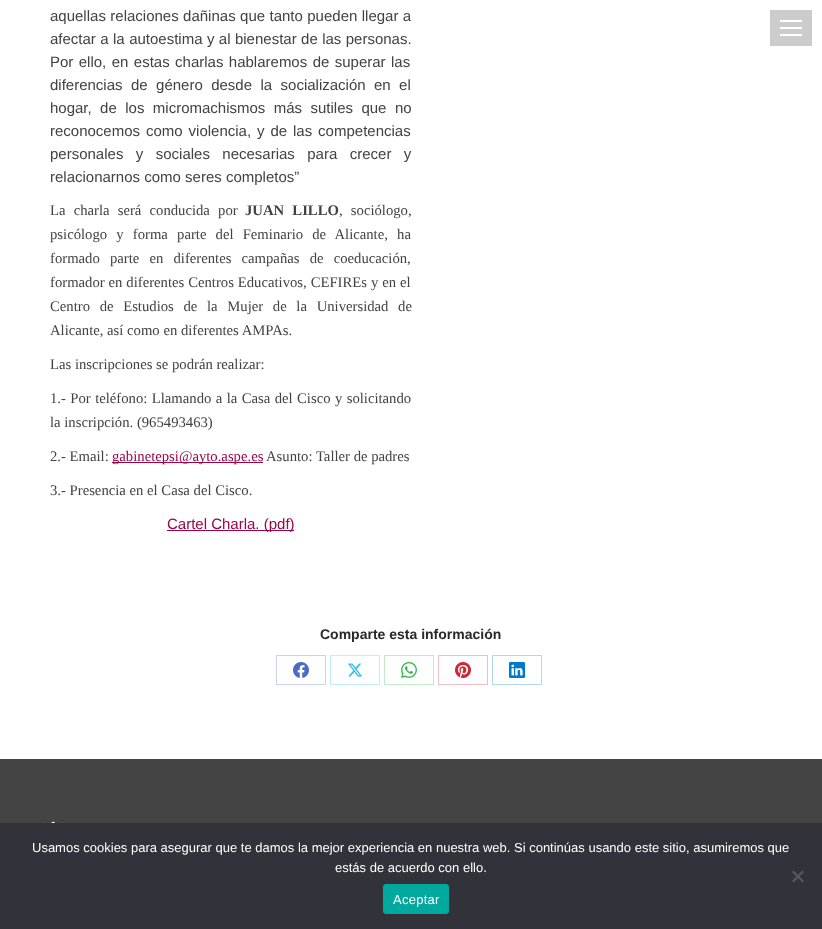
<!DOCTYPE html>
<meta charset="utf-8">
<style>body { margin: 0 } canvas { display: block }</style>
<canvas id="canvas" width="822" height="929"></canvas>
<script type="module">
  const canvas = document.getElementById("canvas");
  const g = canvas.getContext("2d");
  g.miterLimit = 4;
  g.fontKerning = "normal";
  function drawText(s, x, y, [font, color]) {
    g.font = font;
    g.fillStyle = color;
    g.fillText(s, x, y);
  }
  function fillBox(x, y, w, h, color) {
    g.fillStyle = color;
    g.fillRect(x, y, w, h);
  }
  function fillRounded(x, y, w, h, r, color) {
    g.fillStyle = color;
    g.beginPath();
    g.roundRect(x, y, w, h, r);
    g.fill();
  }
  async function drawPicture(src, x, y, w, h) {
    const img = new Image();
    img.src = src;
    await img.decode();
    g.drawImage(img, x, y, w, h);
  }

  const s1 = ["15px Liberation Sans", "#424242"];
  const s2 = ["14.7px Liberation Serif", "#424242"];
  const s3 = ["bold 14.7px Liberation Serif", "#424242"];
  const s4 = ["14.7px Liberation Serif", "#9B0448"];
  const s5 = ["15px Liberation Sans", "#9B0448"];
  const s6 = ["bold 14px Liberation Sans", "#282828"];
  const s7 = ["13px Liberation Sans", "#FFFFFF"];

  fillBox(0, 0, 822, 929, "#FFFFFF");
  g.wordSpacing = "0.25px";
  drawText("aquellas relaciones dañinas que tanto pueden llegar a", 50, 21, s1);
  drawText("afectar a la autoestima y al bienestar de las personas.", 50, 44, s1);
  g.wordSpacing = "1.25px";
  drawText("Por ello, en estas charlas hablaremos de superar las", 50, 67, s1);
  g.wordSpacing = "4.25px";
  drawText("diferencias de género desde la socialización en el", 50, 90, s1);
  drawText("hogar, de los micromachismos más sutiles que no", 50, 113, s1);
  g.wordSpacing = "1.75px";
  drawText("reconocemos como violencia, y de las competencias", 50, 136, s1);
  g.wordSpacing = "8.25px";
  drawText("personales y sociales necesarias para crecer y", 50, 159, s1);
  g.wordSpacing = "0px";
  drawText("relacionarnos como seres completos”", 50, 182, s1);
  g.wordSpacing = "4.5px";
  drawText("La charla será conducida por", 50, 215, s2);
  drawText("JUAN LILLO", 245, 215, s3);
  drawText(", sociólogo,", 339, 215, s2);
  g.wordSpacing = "5.5px";
  drawText("psicólogo y forma parte del Feminario de Alicante, ha", 50, 239, s2);
  g.wordSpacing = "6.5px";
  drawText("formado parte en diferentes campañas de coeducación,", 50, 263, s2);
  g.wordSpacing = "0.25px";
  drawText("formador en diferentes Centros Educativos, CEFIREs y en el", 50, 287, s2);
  g.wordSpacing = "6px";
  drawText("Centro de Estudios de la Mujer de la Universidad de", 50, 311, s2);
  g.wordSpacing = "0px";
  drawText("Alicante, así como en diferentes AMPAs.", 50, 335, s2);
  drawText("Las inscripciones se podrán realizar:", 50, 369, s2);
  g.wordSpacing = "0.75px";
  drawText("1.- Por teléfono: Llamando a la Casa del Cisco y solicitando", 50, 403, s2);
  g.wordSpacing = "0px";
  drawText("la inscripción. (965493463)", 50, 427, s2);
  drawText("2.- Email:", 50, 461, s2);
  fillBox(112, 462, 151, 1, "#9B0448");
  drawText("gabinetepsi@ayto.aspe.es", 112, 461, s4);
  drawText("Asunto: Taller de padres", 266, 461, s2);
  drawText("3.- Presencia en el Casa del Cisco.", 50, 495, s2);
  fillBox(167, 530, 127, 1, "#9B0448");
  drawText("Cartel Charla. (pdf)", 167, 529, s5);
  drawText("Comparte esta información", 320, 639, s6);
  g.strokeStyle = "#C9D2EE";
  g.strokeRect(276.5, 655.5, 49, 29);
  await drawPicture("pic1.png", 293, 662, 16, 16);
  g.strokeStyle = "#BFECF9";
  g.strokeRect(330.5, 655.5, 49, 29);
  await drawPicture("pic2.png", 348, 663, 15, 14);
  g.strokeStyle = "#C3E9CA";
  g.strokeRect(384.5, 655.5, 49, 29);
  await drawPicture("pic3.png", 401, 662, 16, 16);
  g.strokeStyle = "#F1BFC2";
  g.strokeRect(438.5, 655.5, 49, 29);
  await drawPicture("pic4.png", 455, 662, 16, 16);
  g.strokeStyle = "#B3D7EE";
  g.strokeRect(492.5, 655.5, 49, 29);
  await drawPicture("pic5.png", 509, 662, 16, 16);
  fillBox(770, 10, 42, 36, "#CCCCCC");
  fillBox(780, 20, 22, 2, "#FFFFFF");
  fillBox(780, 27, 22, 2, "#FFFFFF");
  fillBox(780, 34, 22, 2, "#FFFFFF");
  fillBox(0, 759, 822, 64, "#444444");
  await drawPicture("pic6.png", 44, 821, 19, 2);
  fillBox(0, 823, 822, 106, "#32323A");
  drawText("Usamos cookies para asegurar que te damos la mejor experiencia en nuestra web. Si continúas usando este sitio, asumiremos que", 32, 852, s7);
  drawText("estás de acuerdo con ello.", 335, 872, s7);
  g.fillStyle = "#59595D";
  g.beginPath();
  g.moveTo(802.5, 870.5);
  g.lineTo(804, 872);
  g.lineTo(793.5, 882.5);
  g.lineTo(792, 881);
  g.closePath();
  g.fill();
  g.beginPath();
  g.moveTo(792, 872);
  g.lineTo(793.5, 870.5);
  g.lineTo(804, 881);
  g.lineTo(802.5, 882.5);
  g.closePath();
  g.fill();
  fillRounded(383, 884, 66, 30, 3, "#00A99D");
  g.letterSpacing = "0.25px";
  drawText("Aceptar", 393, 904, s7);
</script>
